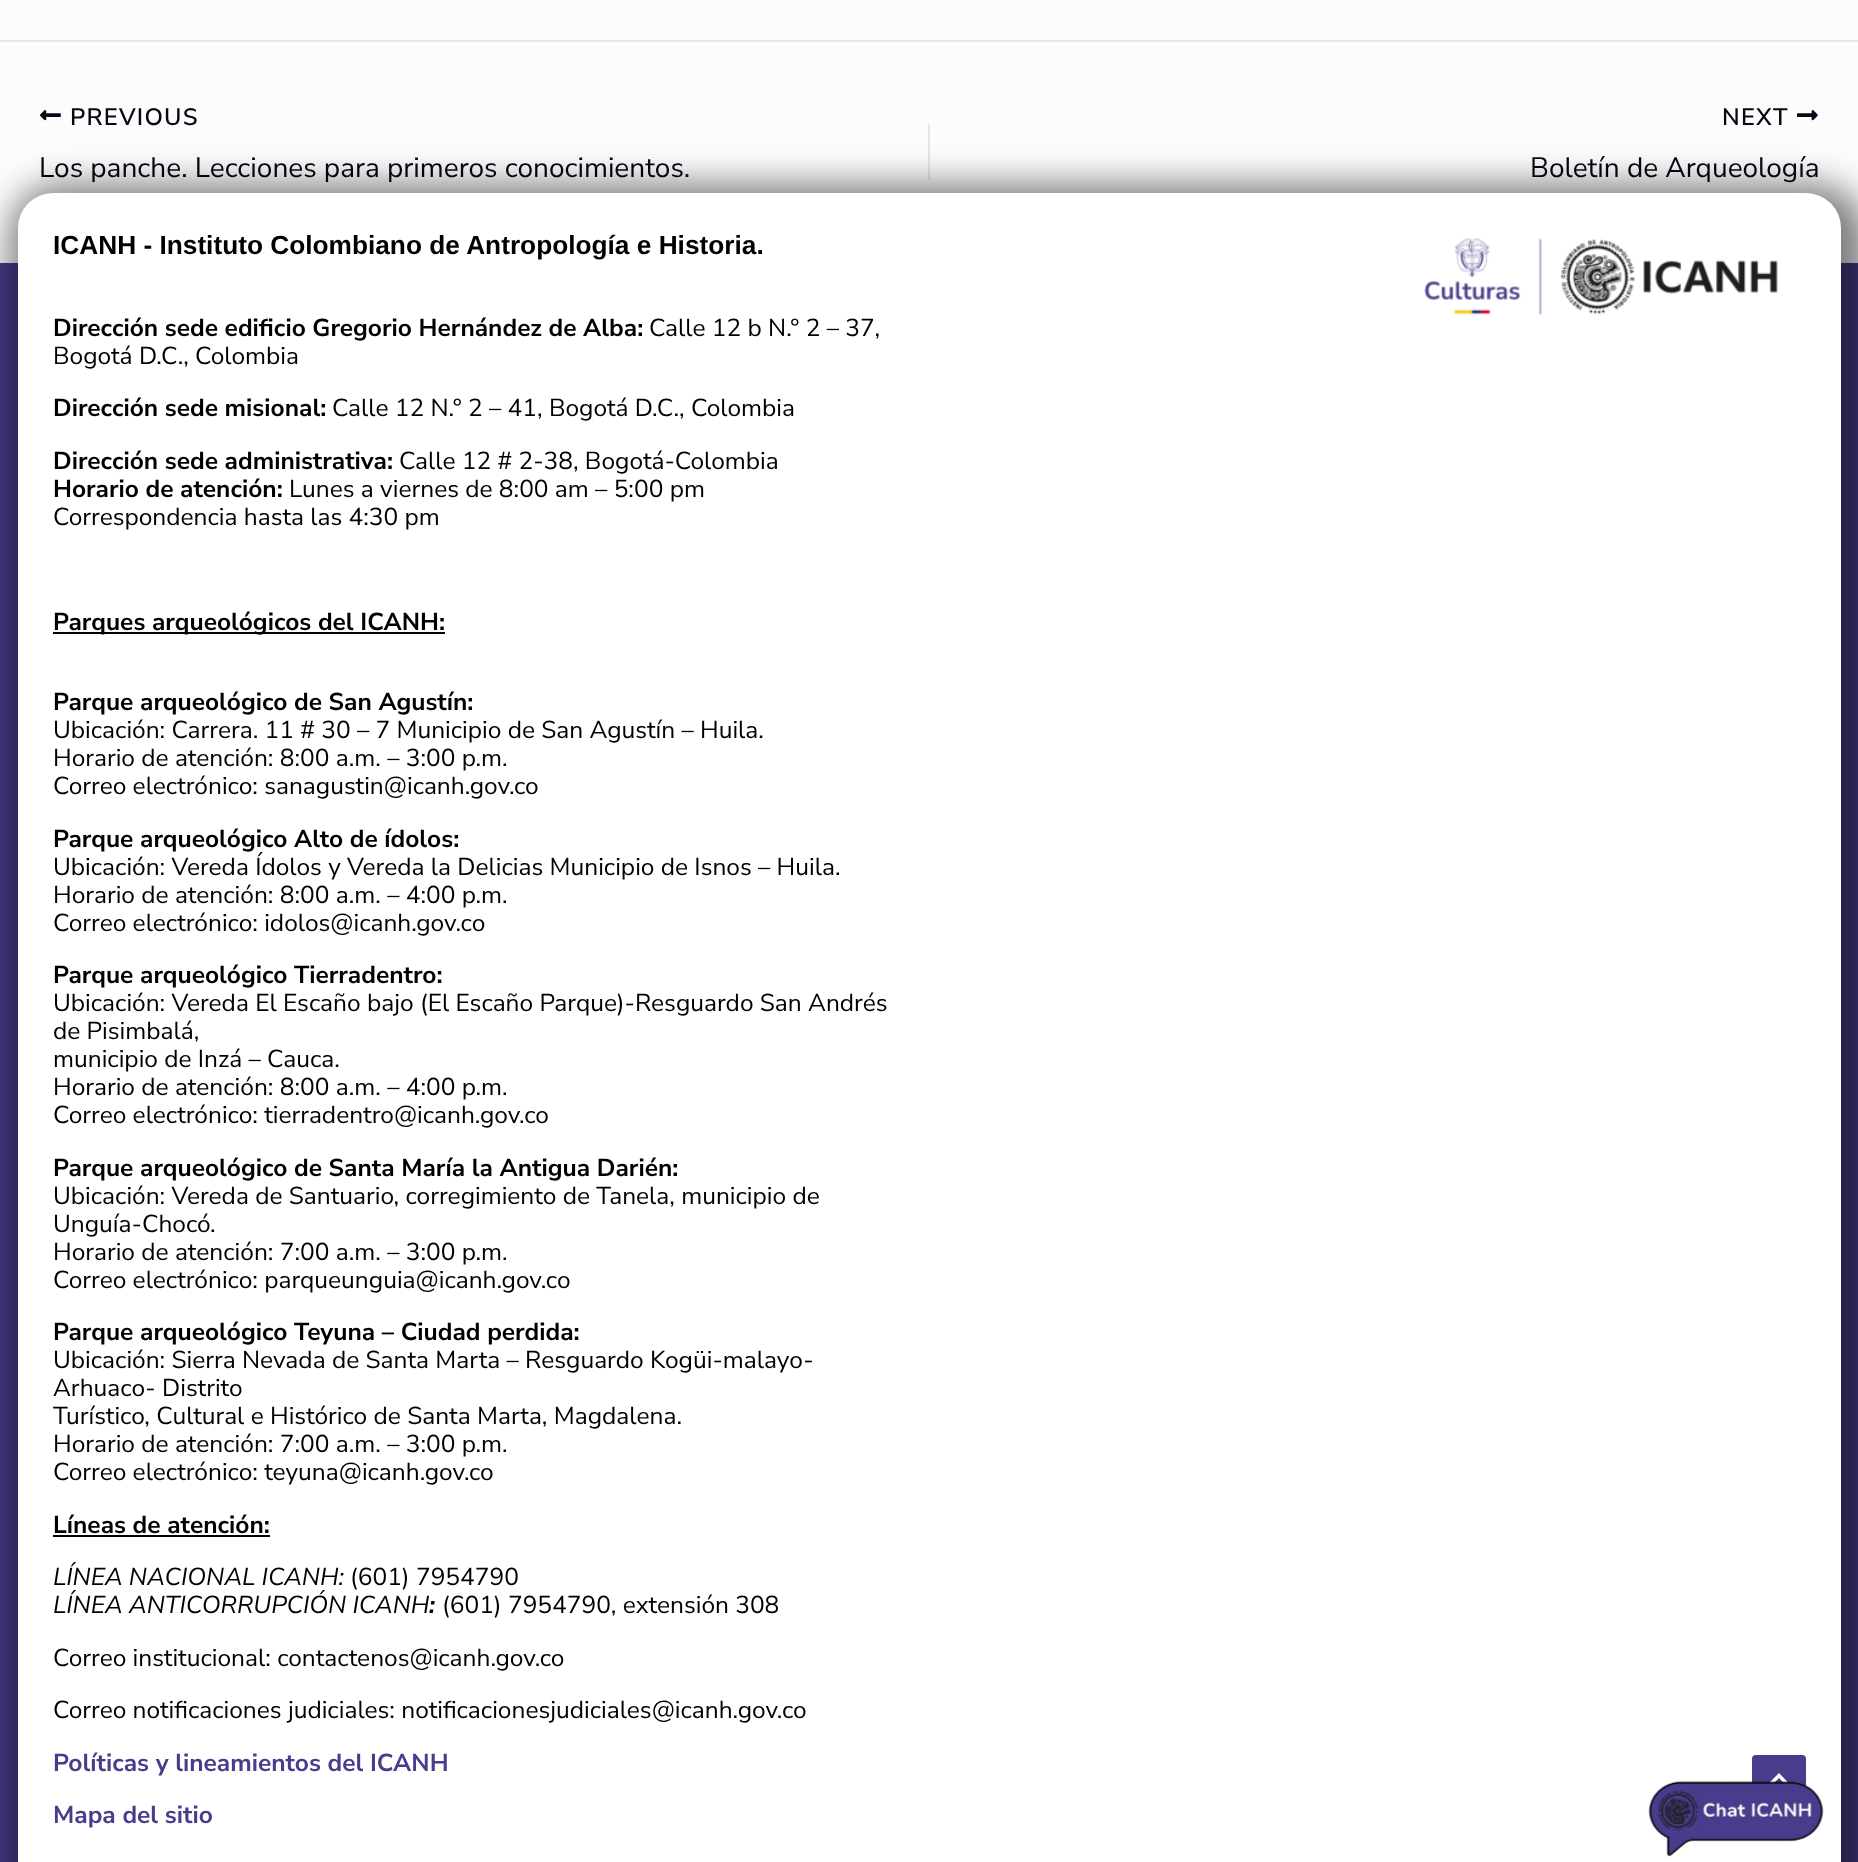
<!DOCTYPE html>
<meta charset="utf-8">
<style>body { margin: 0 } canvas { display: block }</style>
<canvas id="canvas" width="1858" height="1862"></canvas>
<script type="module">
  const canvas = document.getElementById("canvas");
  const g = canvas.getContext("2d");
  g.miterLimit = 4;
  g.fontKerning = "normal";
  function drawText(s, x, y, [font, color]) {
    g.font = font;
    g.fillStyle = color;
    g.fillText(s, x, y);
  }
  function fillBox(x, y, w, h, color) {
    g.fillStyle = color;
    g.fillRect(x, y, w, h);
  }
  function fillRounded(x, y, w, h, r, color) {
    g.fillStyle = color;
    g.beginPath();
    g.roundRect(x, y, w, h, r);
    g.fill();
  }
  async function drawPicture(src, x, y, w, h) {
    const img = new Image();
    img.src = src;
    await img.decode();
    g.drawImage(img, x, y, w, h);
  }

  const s1 = ["600 23.75px Nunito Sans", "#070614"];
  const s2 = ["200 28px Nunito Sans", "#070614"];
  const s3 = ["bold 26.25px Liberation Sans", "#000000"];
  const s4 = ["bold 24.5px Nunito Sans", "#000000"];
  const s5 = ["200 24.5px Nunito Sans", "#000000"];
  const s6 = ["italic 24.5px Nunito Sans", "#000000"];
  const s7 = ["italic bold 24.5px Nunito Sans", "#000000"];
  const s8 = ["bold 24.5px Nunito Sans", "#4A3C8C"];

  fillBox(0, 0, 1858, 1862, "#FCFCFC");
  fillBox(0, 40, 1858, 2, "#E1E8ED");
  await drawPicture("pic1.png", 40, 110, 21, 11);
  g.letterSpacing = "1.25px";
  drawText("PREVIOUS", 70, 125, s1);
  g.letterSpacing = "0px";
  drawText("Los panche. Lecciones para primeros conocimientos.", 39, 177, s2);
  fillBox(928, 124, 2, 56, "#E1E8ED");
  g.letterSpacing = "1.25px";
  drawText("NEXT", 1722, 125, s1);
  await drawPicture("pic2.png", 1797, 110, 21, 11);
  g.letterSpacing = "0px";
  drawText("Boletín de Arqueología", 1530, 177, s2);
  fillBox(0, 263, 1858, 1599, "#4A3C8C");
  g.fillStyle = "rgba(0, 0, 0, 0.5)";
  g.filter = "blur(17.5px)";
  g.beginPath();
  g.roundRect(9, 184, 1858, 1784, 53);
  g.fill();
  g.filter = "none";
  fillRounded(18, 193, 1823, 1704, 35, "#FFFFFF");
  drawText("ICANH - Instituto Colombiano de Antropología e Historia.", 53, 254, s3);
  await drawPicture("pic3.png", 1424, 238, 354, 77);
  drawText("Dirección sede edificio Gregorio Hernández de Alba:", 53, 336, s4);
  drawText("Calle 12 b N.° 2 – 37,", 649, 336, s5);
  drawText("Bogotá D.C., Colombia", 53, 364, s5);
  drawText("Dirección sede misional:", 53, 416, s4);
  drawText("Calle 12 N.° 2 – 41, Bogotá D.C., Colombia", 332, 416, s5);
  drawText("Dirección sede administrativa:", 53, 469, s4);
  drawText("Calle 12 # 2-38, Bogotá-Colombia", 399, 469, s5);
  drawText("Horario de atención:", 53, 497, s4);
  drawText("Lunes a viernes de 8:00 am – 5:00 pm", 289, 497, s5);
  drawText("Correspondencia hasta las 4:30 pm", 53, 525, s5);
  fillBox(53, 632, 392, 2, "#000000");
  drawText("Parques arqueológicos del ICANH:", 53, 630, s4);
  drawText("Parque arqueológico de San Agustín:", 53, 710, s4);
  drawText("Ubicación: Carrera. 11 # 30 – 7 Municipio de San Agustín – Huila.", 53, 738, s5);
  drawText("Horario de atención: 8:00 a.m. – 3:00 p.m.", 53, 766, s5);
  drawText("Correo electrónico: sanagustin@icanh.gov.co", 53, 794, s5);
  drawText("Parque arqueológico Alto de ídolos:", 53, 847, s4);
  drawText("Ubicación: Vereda Ídolos y Vereda la Delicias Municipio de Isnos – Huila.", 53, 875, s5);
  drawText("Horario de atención: 8:00 a.m. – 4:00 p.m.", 53, 903, s5);
  drawText("Correo electrónico: idolos@icanh.gov.co", 53, 931, s5);
  drawText("Parque arqueológico Tierradentro:", 53, 983, s4);
  drawText("Ubicación: Vereda El Escaño bajo (El Escaño Parque)-Resguardo San Andrés", 53, 1011, s5);
  drawText("de Pisimbalá,", 53, 1039, s5);
  drawText("municipio de Inzá – Cauca.", 53, 1067, s5);
  drawText("Horario de atención: 8:00 a.m. – 4:00 p.m.", 53, 1095, s5);
  drawText("Correo electrónico: tierradentro@icanh.gov.co", 53, 1123, s5);
  drawText("Parque arqueológico de Santa María la Antigua Darién:", 53, 1176, s4);
  drawText("Ubicación: Vereda de Santuario, corregimiento de Tanela, municipio de", 53, 1204, s5);
  drawText("Unguía-Chocó.", 53, 1232, s5);
  drawText("Horario de atención: 7:00 a.m. – 3:00 p.m.", 53, 1260, s5);
  drawText("Correo electrónico: parqueunguia@icanh.gov.co", 53, 1288, s5);
  drawText("Parque arqueológico Teyuna – Ciudad perdida:", 53, 1340, s4);
  drawText("Ubicación: Sierra Nevada de Santa Marta – Resguardo Kogüi-malayo-", 53, 1368, s5);
  drawText("Arhuaco- Distrito", 53, 1396, s5);
  drawText("Turístico, Cultural e Histórico de Santa Marta, Magdalena.", 53, 1424, s5);
  drawText("Horario de atención: 7:00 a.m. – 3:00 p.m.", 53, 1452, s5);
  drawText("Correo electrónico: teyuna@icanh.gov.co", 53, 1480, s5);
  drawText("Líneas de atención:", 53, 1533, s4);
  fillBox(53, 1535, 217, 2, "#000000");
  drawText("LÍNEA NACIONAL ICANH:", 53, 1585, s6);
  drawText("(601) 7954790", 350, 1585, s5);
  drawText("LÍNEA ANTICORRUPCIÓN ICANH", 53, 1613, s6);
  drawText(":", 429, 1613, s7);
  drawText("(601) 7954790, extensión 308", 442, 1613, s5);
  drawText("Correo institucional: contactenos@icanh.gov.co", 53, 1666, s5);
  drawText("Correo notificaciones judiciales: notificacionesjudiciales@icanh.gov.co", 53, 1718, s5);
  drawText("Políticas y lineamientos del ICANH", 53, 1771, s8);
  drawText("Mapa del sitio", 53, 1823, s8);
  fillRounded(1752, 1755, 54, 55, 4, "#4A3C8C");
  g.fillStyle = "#FFFFFF";
  g.beginPath();
  g.moveTo(1791, 1785.5);
  g.lineTo(1779, 1773);
  g.lineTo(1766.5, 1785.5);
  g.lineTo(1769, 1788);
  g.lineTo(1779, 1778);
  g.lineTo(1788.5, 1788);
  g.closePath();
  g.fill();
  await drawPicture("pic4.png", 1648, 1780, 176, 77);
</script>
